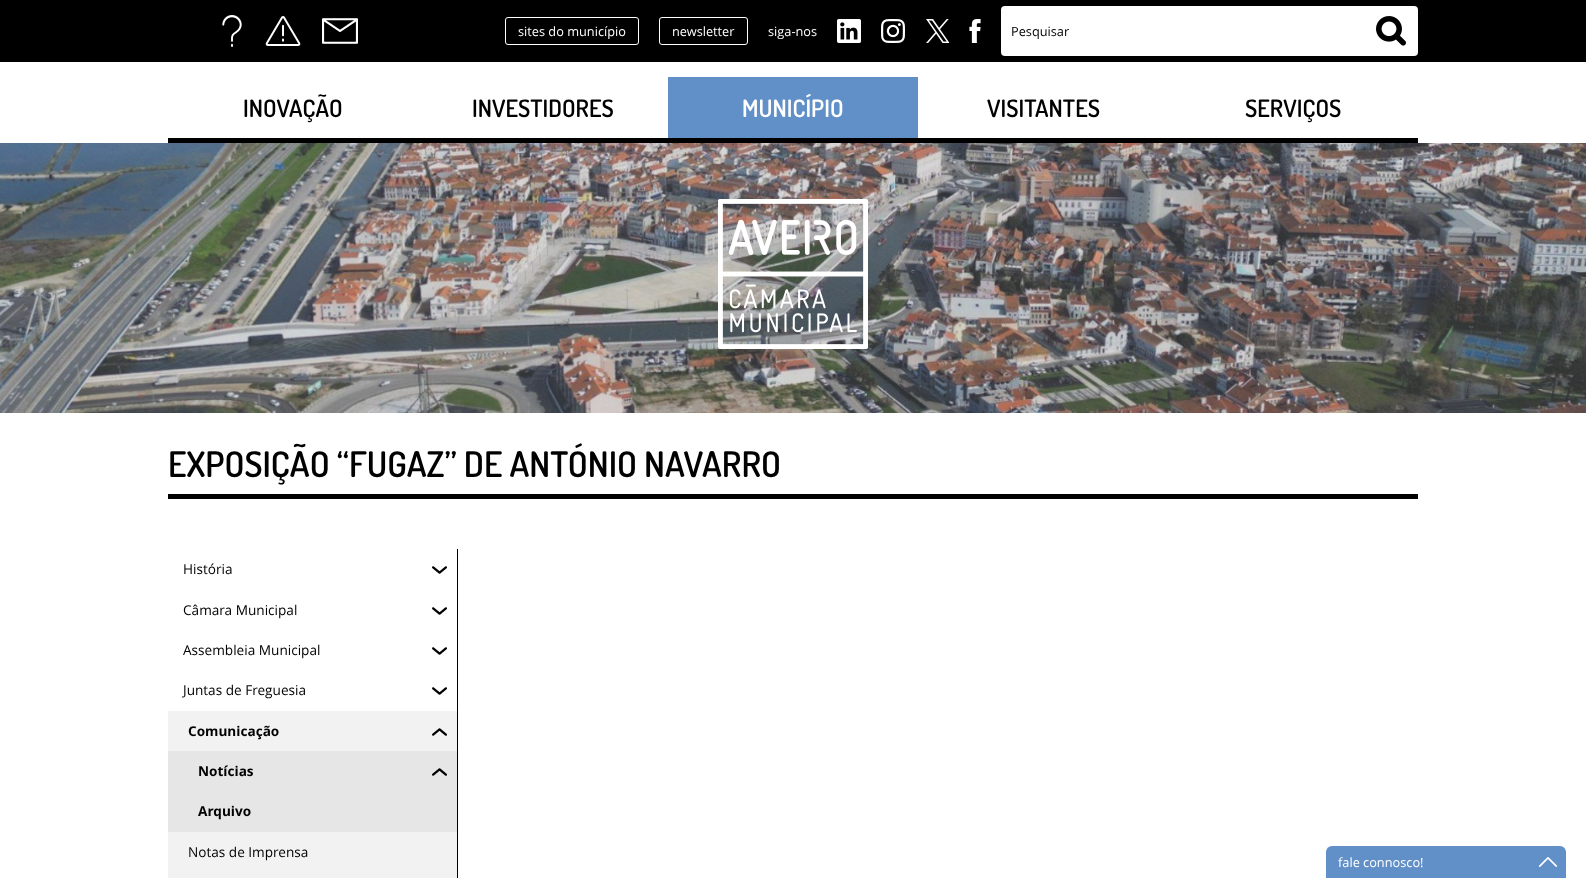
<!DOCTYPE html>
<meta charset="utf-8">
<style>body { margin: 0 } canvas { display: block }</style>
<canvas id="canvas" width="1586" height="878"></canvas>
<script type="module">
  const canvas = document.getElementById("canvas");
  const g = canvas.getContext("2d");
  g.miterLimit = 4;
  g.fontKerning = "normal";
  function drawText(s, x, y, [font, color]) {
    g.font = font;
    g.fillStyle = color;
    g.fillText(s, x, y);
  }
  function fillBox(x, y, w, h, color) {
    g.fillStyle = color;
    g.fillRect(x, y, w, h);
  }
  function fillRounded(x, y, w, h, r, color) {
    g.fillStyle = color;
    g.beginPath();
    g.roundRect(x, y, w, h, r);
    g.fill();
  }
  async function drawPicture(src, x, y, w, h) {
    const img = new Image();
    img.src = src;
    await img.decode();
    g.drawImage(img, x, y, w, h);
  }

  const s1 = ["12.75px Open Sans", "#FFFFFF"];
  const s2 = ["12.75px Open Sans", "#000000"];
  const s3 = ["600 24px Dosis", "#000000"];
  const s4 = ["600 24px Dosis", "#FFFFFF"];
  const s5 = ["600 35.25px Dosis", "#000000"];
  const s6 = ["13.6px Open Sans", "#000000"];
  const s7 = ["bold 13.6px Open Sans", "#000000"];

  fillBox(0, 0, 1586, 878, "#FFFFFF");
  fillBox(0, 0, 1586, 62, "#000000");
  await drawPicture("pic1.png", 222, 15, 20, 32);
  await drawPicture("pic2.png", 265, 16, 36, 30);
  await drawPicture("pic3.png", 322, 18, 36, 26);
  g.beginPath();
  g.roundRect(505.5, 17.5, 133, 27, 2.5);
  g.strokeStyle = "#FFFFFF";
  g.stroke();
  drawText("sites do município", 518, 36, s1);
  g.beginPath();
  g.roundRect(659.5, 17.5, 88, 27, 2.5);
  g.stroke();
  drawText("newsletter", 672, 36, s1);
  drawText("siga-nos", 768, 36, s1);
  await drawPicture("pic4.png", 837, 19, 24, 24);
  await drawPicture("pic5.png", 881, 19, 24, 24);
  await drawPicture("pic6.png", 926, 19, 23, 24);
  await drawPicture("pic7.png", 969, 19, 12, 24);
  fillRounded(1001, 6, 417, 50, 4, "#FFFFFF");
  drawText("Pesquisar", 1011, 36, s2);
  await drawPicture("pic8.png", 1376, 16, 30, 30);
  fillBox(168, 138, 1250, 5, "#000000");
  drawText("INOVAÇÃO", 243, 117, s3);
  drawText("INVESTIDORES", 472, 117, s3);
  fillBox(668, 77, 250, 61, "#6190C8");
  drawText("MUNICÍPIO", 742, 117, s4);
  drawText("VISITANTES", 987, 117, s3);
  drawText("SERVIÇOS", 1245, 117, s3);
  await drawPicture("pic10.png", 0, 143, 1586, 270);
  await drawPicture("pic9.png", 718, 199, 150, 150);
  fillBox(168, 494, 1250, 5, "#000000");
  drawText("EXPOSIÇÃO “FUGAZ” DE ANTÓNIO NAVARRO", 168, 477, s5);
  fillBox(457, 549, 1, 329, "#000000");
  drawText("História", 183, 574, s6);
  await drawPicture("pic11.png", 432, 566, 15, 8);
  drawText("Câmara Municipal", 183, 615, s6);
  await drawPicture("pic11.png", 432, 607, 15, 8);
  drawText("Assembleia Municipal", 183, 655, s6);
  await drawPicture("pic11.png", 432, 647, 15, 8);
  drawText("Juntas de Freguesia", 183, 695, s6);
  await drawPicture("pic11.png", 432, 687, 15, 8);
  fillBox(168, 711, 289, 40, "#F2F2F2");
  drawText("Comunicação", 188, 736, s7);
  await drawPicture("pic12.png", 432, 728, 15, 8);
  fillBox(168, 751, 289, 81, "#E6E6E6");
  drawText("Notícias", 198, 776, s7);
  await drawPicture("pic13.png", 432, 768, 15, 8);
  drawText("Arquivo", 198, 816, s7);
  fillBox(168, 832, 289, 46, "#F2F2F2");
  drawText("Notas de Imprensa", 188, 857, s6);
  g.fillStyle = "#6190C8";
  g.beginPath();
  g.roundRect(1326, 846, 240, 32, [6, 6, 0, 0]);
  g.fill();
  drawText("fale connosco!", 1338, 867, s1);
  await drawPicture("pic14.png", 1538, 857, 20, 10);
</script>
